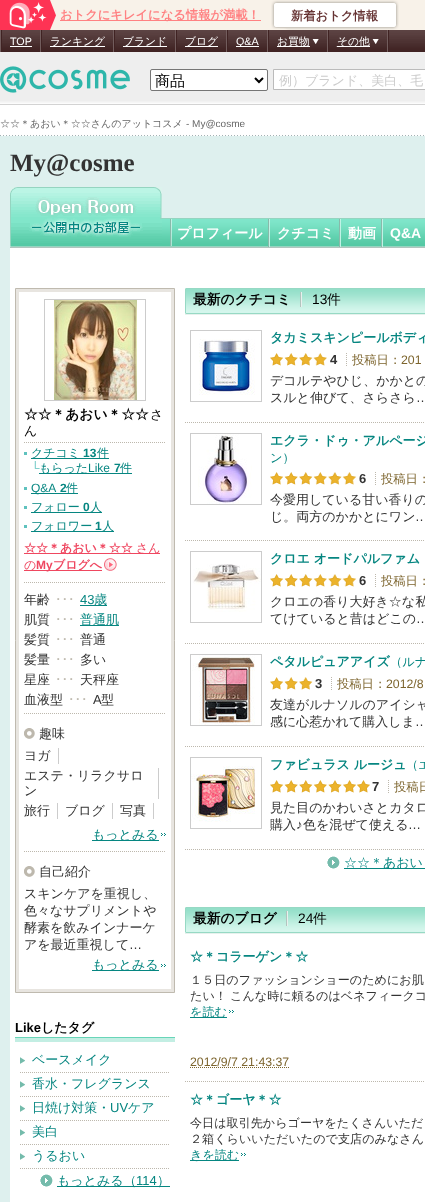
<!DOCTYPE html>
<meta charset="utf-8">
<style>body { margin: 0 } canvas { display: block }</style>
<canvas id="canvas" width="425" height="1202"></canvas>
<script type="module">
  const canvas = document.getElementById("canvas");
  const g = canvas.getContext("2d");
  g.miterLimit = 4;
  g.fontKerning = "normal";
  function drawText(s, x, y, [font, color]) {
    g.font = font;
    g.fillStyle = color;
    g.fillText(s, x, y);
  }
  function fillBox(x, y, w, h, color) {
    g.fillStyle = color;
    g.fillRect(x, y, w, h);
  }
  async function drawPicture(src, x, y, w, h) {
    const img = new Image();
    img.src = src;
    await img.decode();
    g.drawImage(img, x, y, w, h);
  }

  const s1 = ["bold 12.3px WenQuanYi Zen Hei", "#FF8182"];
  const s2 = ["bold 12.3px WenQuanYi Zen Hei", "#663333"];
  const s3 = ["10.75px Liberation Sans", "#FFFFFF"];
  const s4 = ["500 10.75px WenQuanYi Zen Hei", "#FFFFFF"];
  const s5 = ["500 15px WenQuanYi Zen Hei", "#000000"];
  const s6 = ["500 13px WenQuanYi Zen Hei", "#CCCCCC"];
  const s7 = ["500 10px WenQuanYi Zen Hei", "#666666"];
  const s8 = ["10px Liberation Sans", "#666666"];
  const s9 = ["bold 25px Liberation Serif", "#333333"];
  const s10 = ["bold 14px WenQuanYi Zen Hei", "#FFFFFF"];
  const s11 = ["bold 14px Liberation Sans", "#FFFFFF"];
  const s12 = ["bold 13.75px WenQuanYi Zen Hei", "#000000"];
  const s13 = ["500 13px WenQuanYi Zen Hei", "#000000"];
  const s14 = ["500 12px WenQuanYi Zen Hei", "#068681"];
  const s15 = ["bold 12px Liberation Sans", "#068681"];
  const s16 = ["12px Liberation Sans", "#5FC2BE"];
  const s17 = ["12px Liberation Sans", "#068681"];
  const s18 = ["bold 12px WenQuanYi Zen Hei", "#EF4760"];
  const s19 = ["500 12px WenQuanYi Zen Hei", "#EF4760"];
  const s20 = ["bold 12px Liberation Sans", "#EF4760"];
  const s21 = ["500 13px WenQuanYi Zen Hei", "#333333"];
  const s22 = ["13px IPAPGothic", "#BDB8AD"];
  const s23 = ["13px Liberation Sans", "#068681"];
  const s24 = ["500 13px WenQuanYi Zen Hei", "#068681"];
  const s25 = ["13px Liberation Sans", "#333333"];
  const s26 = ["bold 13px Liberation Sans", "#000000"];
  const s27 = ["bold 13px WenQuanYi Zen Hei", "#000000"];
  const s28 = ["13.75px Liberation Sans", "#000000"];
  const s29 = ["500 13.75px WenQuanYi Zen Hei", "#000000"];
  const s30 = ["bold 13px WenQuanYi Zen Hei", "#068681"];
  const s31 = ["bold 13px Liberation Sans", "#333333"];
  const s32 = ["500 12.3px WenQuanYi Zen Hei", "#7D652E"];
  const s33 = ["12.3px Liberation Sans", "#7D652E"];
  const s34 = ["500 12.3px WenQuanYi Zen Hei", "#068681"];
  const s35 = ["500 12.1px WenQuanYi Zen Hei", "#333333"];
  const s36 = ["500 12.1px WenQuanYi Zen Hei", "#068681"];

  fillBox(0, 0, 425, 1202, "#DEF0EE");
  fillBox(50, 0, 375, 30, "#F8F2E9");
  await drawPicture("pic1.png", 0, 0, 56, 30);
  fillBox(60, 20, 201, 1, "#FF8182");
  drawText("おトクにキレイになる情報が満載！", 60, 19, s1);
  await drawPicture("pic2.png", 271, 0, 128, 30);
  drawText("新着おトク情報", 291, 20, s2);
  await drawPicture("pic3.png", 0, 30, 425, 75);
  fillBox(388, 30, 1, 22, "#402323");
  fillBox(0, 30, 1, 22, "#725D5D");
  fillBox(40, 30, 1, 22, "#725D5D");
  fillBox(1, 30, 1, 22, "#402323");
  drawText("TOP", 10, 45, s3);
  fillBox(10, 46, 22, 1, "#FFFFFF");
  fillBox(113, 30, 1, 22, "#725D5D");
  fillBox(41, 30, 1, 22, "#402323");
  fillBox(50, 46, 55, 1, "#FFFFFF");
  drawText("ランキング", 50, 45, s4);
  fillBox(175, 30, 1, 22, "#725D5D");
  fillBox(114, 30, 1, 22, "#402323");
  fillBox(123, 46, 44, 1, "#FFFFFF");
  drawText("ブランド", 123, 45, s4);
  fillBox(226, 30, 1, 22, "#725D5D");
  fillBox(176, 30, 1, 22, "#402323");
  fillBox(185, 46, 33, 1, "#FFFFFF");
  drawText("ブログ", 185, 45, s4);
  fillBox(267, 30, 1, 22, "#725D5D");
  fillBox(227, 30, 1, 22, "#402323");
  fillBox(236, 46, 23, 1, "#FFFFFF");
  drawText("Q&A", 236, 45, s3);
  fillBox(327, 30, 1, 22, "#725D5D");
  fillBox(268, 30, 1, 22, "#402323");
  fillBox(277, 46, 33, 1, "#FFFFFF");
  drawText("お買物", 277, 45, s4);
  await drawPicture("pic4.png", 312, 39, 7, 5);
  fillBox(387, 30, 1, 22, "#725D5D");
  fillBox(328, 30, 1, 22, "#402323");
  await drawPicture("pic5.png", 336, 39, 43, 8);
  fillBox(369, 46, 1, 1, "#FFFFFF");
  drawText("その他", 337, 45, s4);
  await drawPicture("pic6.png", 0, 66, 130, 27);
  g.beginPath();
  g.roundRect(150.5, 69.5, 117, 21, 1.5);
  g.fill();
  g.strokeStyle = "#767676";
  g.stroke();
  g.beginPath();
  g.moveTo(255, 78);
  g.lineTo(259, 82);
  g.lineTo(263, 78);
  g.strokeStyle = "#000000";
  g.lineWidth = 2;
  g.stroke();
  drawText("商品", 155, 86, s5);
  g.fillStyle = "#FFFFFF";
  g.beginPath();
  g.rect(273.5, 69.5, 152, 20);
  g.fill();
  g.strokeStyle = "#BBBBBB";
  g.lineWidth = 1;
  g.stroke();
  drawText("例）ブランド、美白、毛", 279, 85, s6);
  fillBox(0, 105, 425, 31, "#FFFFFF");
  await drawPicture("pic7.png", 0, 135, 424, 1);
  drawText("☆☆＊あおい＊☆☆さんのアットコスメ", 0, 127, s7);
  drawText("- My@cosme", 186, 127, s8);
  drawText("My@cosme", 10, 171, s9);
  await drawPicture("pic8.png", 10, 187, 152, 61);
  await drawPicture("pic9.png", 162, 218, 263, 30);
  await drawPicture("pic10.png", 268, 219, 2, 28);
  drawText("プロフィール", 177, 238, s10);
  await drawPicture("pic10.png", 339, 219, 2, 28);
  drawText("クチコミ", 277, 238, s10);
  await drawPicture("pic10.png", 381, 219, 2, 28);
  drawText("動画", 348, 238, s10);
  drawText("Q&A", 390, 238, s11);
  fillBox(10, 248, 415, 954, "#FFFFFF");
  g.fillStyle = "#E8E5E0";
  g.beginPath();
  g.rect(15.5, 288.5, 159, 704);
  g.fill();
  g.strokeStyle = "#BFBAAF";
  g.stroke();
  fillBox(19, 292, 152, 697, "#FFFFFF");
  g.strokeStyle = "#CCCCCC";
  g.strokeRect(44.5, 299.5, 101, 101);
  await drawPicture("pic11.png", 54, 300, 83, 100);
  drawText("☆☆＊あおい＊☆☆", 24, 419, s12);
  drawText("さ", 150, 419, s13);
  drawText("ん", 24, 435, s13);
  g.beginPath();
  g.moveTo(24, 442.5);
  g.lineTo(166, 442.5);
  g.strokeStyle = "#BDB8AD";
  g.setLineDash([1, 1]);
  g.stroke();
  fillBox(24, 452, 3, 3, "#5FC2BE");
  fillBox(31, 458, 78, 1, "#068681");
  drawText("クチコミ", 31, 457, s14);
  drawText("13", 83, 457, s15);
  drawText("件", 97, 457, s14);
  drawText("└", 31, 472, s16);
  fillBox(39, 473, 93, 1, "#068681");
  drawText("もらった", 39, 472, s14);
  drawText("Like", 88, 472, s17);
  drawText("7", 114, 472, s15);
  drawText("件", 120, 472, s14);
  fillBox(24, 487, 3, 3, "#5FC2BE");
  fillBox(31, 493, 47, 1, "#068681");
  drawText("Q&A", 31, 492, s17);
  drawText("2", 60, 492, s15);
  drawText("件", 66, 492, s14);
  fillBox(24, 506, 3, 3, "#5FC2BE");
  fillBox(31, 512, 71, 1, "#068681");
  drawText("フォロー", 31, 511, s14);
  drawText("0", 83, 511, s15);
  drawText("人", 90, 511, s14);
  fillBox(24, 525, 3, 3, "#5FC2BE");
  fillBox(31, 531, 83, 1, "#068681");
  drawText("フォロワー", 31, 530, s14);
  drawText("1", 95, 530, s15);
  drawText("人", 102, 530, s14);
  fillBox(24, 553, 136, 1, "#EF4760");
  drawText("☆☆＊あおい＊☆☆", 24, 552, s18);
  drawText("さん", 136, 552, s19);
  drawText("の", 24, 569, s19);
  fillBox(24, 570, 78, 1, "#EF4760");
  drawText("My", 36, 569, s20);
  drawText("ブログへ", 53, 569, s18);
  await drawPicture("pic12.png", 104, 558, 13, 13);
  g.beginPath();
  g.moveTo(24, 582.5);
  g.lineTo(166, 582.5);
  g.stroke();
  drawText("年齢", 24, 604, s21);
  drawText("･･･", 55, 604, s22);
  drawText("43", 80, 604, s23);
  fillBox(80, 605, 27, 1, "#068681");
  drawText("歳", 94, 604, s24);
  drawText("肌質", 24, 624, s21);
  drawText("･･･", 55, 624, s22);
  fillBox(80, 625, 39, 1, "#068681");
  drawText("普通肌", 80, 624, s24);
  drawText("髪質", 24, 644, s21);
  drawText("･･･", 55, 644, s22);
  drawText("普通", 80, 644, s21);
  drawText("髪量", 24, 664, s21);
  drawText("･･･", 55, 664, s22);
  drawText("多い", 80, 664, s21);
  drawText("星座", 24, 684, s21);
  drawText("･･･", 55, 684, s22);
  drawText("天秤座", 80, 684, s21);
  drawText("血液型", 24, 704, s21);
  drawText("･･･", 68, 704, s22);
  drawText("A", 93, 704, s25);
  drawText("型", 101, 704, s21);
  g.beginPath();
  g.moveTo(24, 713.5);
  g.lineTo(166, 713.5);
  g.stroke();
  await drawPicture("pic13.png", 24, 728, 11, 11);
  drawText("趣味", 39, 738, s21);
  fillBox(58, 748, 1, 16, "#CCCCCC");
  drawText("ヨガ", 24, 760, s21);
  fillBox(158, 768, 1, 31, "#CCCCCC");
  drawText("エステ・リラクサロ", 24, 780, s21);
  drawText("ン", 24, 795, s21);
  fillBox(57, 803, 1, 16, "#CCCCCC");
  drawText("旅行", 24, 815, s21);
  fillBox(112, 803, 1, 16, "#CCCCCC");
  drawText("ブログ", 65, 815, s21);
  fillBox(153, 803, 1, 16, "#CCCCCC");
  drawText("写真", 120, 815, s21);
  fillBox(92, 840, 67, 1, "#068681");
  drawText("もっとみる", 92, 839, s24);
  await drawPicture("pic14.png", 161, 833, 5, 3);
  g.beginPath();
  g.moveTo(24, 851.5);
  g.lineTo(166, 851.5);
  g.stroke();
  await drawPicture("pic13.png", 24, 866, 11, 11);
  drawText("自己紹介", 39, 876, s21);
  drawText("スキンケアを重視し、", 24, 898, s21);
  drawText("色々なサプリメントや", 24, 915, s21);
  drawText("酵素を飲みインナーケ", 24, 932, s21);
  drawText("アを最近重視して", 24, 949, s21);
  drawText("…", 129, 949, s25);
  await drawPicture("pic14.png", 161, 964, 5, 3);
  fillBox(92, 970, 67, 1, "#068681");
  drawText("もっとみる", 92, 969, s24);
  fillBox(15, 1037, 160, 1, "#68D5B8");
  drawText("Like", 15, 1032, s26);
  drawText("したタグ", 41, 1032, s27);
  fillBox(15, 1038, 160, 4, "#C3EEE3");
  await drawPicture("pic15.png", 20, 1057, 5, 7);
  g.beginPath();
  g.moveTo(20, 1072.5);
  g.lineTo(170, 1072.5);
  g.stroke();
  drawText("ベースメイク", 32, 1064, s24);
  await drawPicture("pic15.png", 20, 1081, 5, 7);
  g.beginPath();
  g.moveTo(20, 1096.5);
  g.lineTo(170, 1096.5);
  g.stroke();
  drawText("香水・フレグランス", 32, 1088, s24);
  await drawPicture("pic15.png", 20, 1105, 5, 7);
  g.beginPath();
  g.moveTo(20, 1120.5);
  g.lineTo(170, 1120.5);
  g.stroke();
  drawText("日焼け対策・", 32, 1112, s24);
  drawText("UV", 110, 1112, s23);
  drawText("ケア", 128, 1112, s24);
  await drawPicture("pic15.png", 20, 1129, 5, 7);
  g.beginPath();
  g.moveTo(20, 1144.5);
  g.lineTo(170, 1144.5);
  g.stroke();
  drawText("美白", 32, 1136, s24);
  await drawPicture("pic15.png", 20, 1153, 5, 7);
  g.beginPath();
  g.moveTo(20, 1168.5);
  g.lineTo(170, 1168.5);
  g.stroke();
  drawText("うるおい", 32, 1160, s24);
  await drawPicture("pic16.png", 40, 1174, 13, 13);
  fillBox(57, 1186, 113, 1, "#068681");
  drawText("もっとみる（", 57, 1185, s24);
  drawText("114", 136, 1185, s23);
  drawText("）", 157, 1185, s24);
  await drawPicture("pic17.png", 185, 288, 240, 27);
  drawText("最新のクチコミ", 193, 304, s12);
  fillBox(300, 292, 1, 15, "#B2C4BE");
  drawText("13", 312, 304, s28);
  fillBox(301, 292, 1, 15, "#E7F1ED");
  drawText("件", 327, 304, s29);
  g.beginPath();
  g.moveTo(185, 422.5);
  g.lineTo(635, 422.5);
  g.stroke();
  await drawPicture("pic18.png", 199, 339, 56, 56);
  g.strokeStyle = "#CCCCCC";
  g.setLineDash([]);
  g.strokeRect(190.5, 330.5, 71, 71);
  drawText("タカミスキンピールボディ", 270, 342, s30);
  await drawPicture("pic19.png", 270, 353, 57, 13);
  drawText("4", 330, 364, s31);
  drawText("投稿日：", 352, 364, s32);
  g.beginPath();
  g.moveTo(346.5, 353);
  g.lineTo(346.5, 367);
  g.strokeStyle = "#BDB8AD";
  g.setLineDash([1, 1]);
  g.stroke();
  drawText("201", 401, 364, s33);
  drawText("デコルテやひじ、かかとの", 270, 385, s21);
  drawText("スルと伸びて、さらさら", 270, 402, s21);
  drawText("…", 416, 402, s25);
  g.beginPath();
  g.moveTo(185, 540.5);
  g.lineTo(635, 540.5);
  g.stroke();
  await drawPicture("pic20.png", 198, 434, 54, 70);
  g.strokeStyle = "#CCCCCC";
  g.setLineDash([]);
  g.strokeRect(190.5, 433.5, 71, 71);
  drawText("エクラ・ドゥ・アルページ", 270, 445, s30);
  drawText("ン）", 270, 462, s34);
  await drawPicture("pic21.png", 270, 472, 87, 13);
  drawText("6", 359, 483, s31);
  drawText("投稿日：", 381, 483, s32);
  g.beginPath();
  g.moveTo(375.5, 472);
  g.lineTo(375.5, 486);
  g.strokeStyle = "#BDB8AD";
  g.setLineDash([1, 1]);
  g.stroke();
  drawText("今愛用している甘い香りの", 270, 504, s21);
  drawText("じ。両方のかかとにワン", 270, 521, s21);
  drawText("…", 415, 521, s25);
  g.beginPath();
  g.moveTo(185, 643.5);
  g.lineTo(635, 643.5);
  g.stroke();
  await drawPicture("pic22.png", 193, 564, 68, 48);
  g.strokeStyle = "#CCCCCC";
  g.setLineDash([]);
  g.strokeRect(190.5, 551.5, 71, 71);
  drawText("クロエ オードパルファム", 270, 563, s30);
  await drawPicture("pic21.png", 270, 574, 87, 13);
  drawText("6", 359, 585, s31);
  drawText("投稿日：", 381, 585, s32);
  g.beginPath();
  g.moveTo(375.5, 574);
  g.lineTo(375.5, 588);
  g.strokeStyle = "#BDB8AD";
  g.setLineDash([1, 1]);
  g.stroke();
  drawText("クロエの香り大好き☆な私", 270, 606, s21);
  drawText("てけていると昔はどこの", 270, 623, s21);
  drawText("…", 416, 623, s25);
  g.beginPath();
  g.moveTo(185, 746.5);
  g.lineTo(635, 746.5);
  g.stroke();
  await drawPicture("pic23.png", 192, 655, 63, 70);
  g.strokeStyle = "#CCCCCC";
  g.setLineDash([]);
  g.strokeRect(190.5, 654.5, 71, 71);
  drawText("ペタルピュアアイズ", 270, 666, s30);
  drawText("（ルナ", 390, 666, s34);
  await drawPicture("pic24.png", 270, 677, 43, 13);
  drawText("3", 315, 688, s31);
  drawText("投稿日：", 337, 688, s32);
  g.beginPath();
  g.moveTo(331.5, 677);
  g.lineTo(331.5, 691);
  g.strokeStyle = "#BDB8AD";
  g.setLineDash([1, 1]);
  g.stroke();
  drawText("2012/8", 386, 688, s33);
  drawText("友達がルナソルのアイシャ", 270, 709, s21);
  drawText("感に心惹かれて購入しま", 270, 726, s21);
  drawText("…", 415, 726, s25);
  g.beginPath();
  g.moveTo(185, 849.5);
  g.lineTo(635, 849.5);
  g.stroke();
  await drawPicture("pic25.png", 191, 766, 64, 56);
  g.strokeStyle = "#CCCCCC";
  g.setLineDash([]);
  g.strokeRect(190.5, 757.5, 71, 71);
  drawText("ファビュラス ルージュ", 270, 769, s30);
  drawText("（エ", 406, 769, s34);
  await drawPicture("pic26.png", 270, 780, 100, 13);
  drawText("7", 372, 791, s31);
  drawText("投稿日", 394, 791, s32);
  g.beginPath();
  g.moveTo(388.5, 780);
  g.lineTo(388.5, 794);
  g.strokeStyle = "#BDB8AD";
  g.setLineDash([1, 1]);
  g.stroke();
  drawText("見た目のかわいさとカタロ", 270, 812, s21);
  drawText("購入", 270, 829, s21);
  drawText("♪", 296, 829, s25);
  drawText("色を混ぜて使える", 303, 829, s21);
  drawText("…", 408, 829, s25);
  await drawPicture("pic16.png", 327, 856, 13, 13);
  fillBox(344, 868, 81, 1, "#068681");
  drawText("☆☆＊あおい", 344, 867, s24);
  await drawPicture("pic17.png", 185, 907, 240, 27);
  drawText("最新のブログ", 193, 923, s12);
  fillBox(286, 911, 1, 15, "#B2C4BE");
  drawText("24", 298, 923, s28);
  fillBox(287, 911, 1, 15, "#E7F1ED");
  drawText("件", 313, 923, s29);
  g.beginPath();
  g.moveTo(185, 1081.5);
  g.lineTo(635, 1081.5);
  g.stroke();
  drawText("☆＊コラーゲン＊☆", 190, 961, s30);
  drawText("１５日のファッションショーのためにお肌", 190, 984, s35);
  drawText("たい！", 190, 1000, s35);
  drawText("こんな時に頼るのはベネフィークコ", 230, 1000, s35);
  fillBox(190, 1017, 37, 1, "#068681");
  drawText("を読む", 190, 1016, s36);
  await drawPicture("pic14.png", 229, 1010, 5, 3);
  drawText("2012/9/7 21:43:37", 190, 1066, s33);
  g.beginPath();
  g.moveTo(190, 1067.5);
  g.lineTo(289.5, 1067.5);
  g.strokeStyle = "#7D652E";
  g.stroke();
  drawText("☆＊ゴーヤ＊☆", 190, 1104, s30);
  drawText("今日は取引先からゴーヤをたくさんいただ", 190, 1127, s35);
  drawText("２箱くらいいただいたので支店のみなさん", 190, 1143, s35);
  fillBox(190, 1160, 49, 1, "#068681");
  drawText("きを読む", 190, 1159, s36);
  await drawPicture("pic14.png", 241, 1153, 5, 3);
</script>
